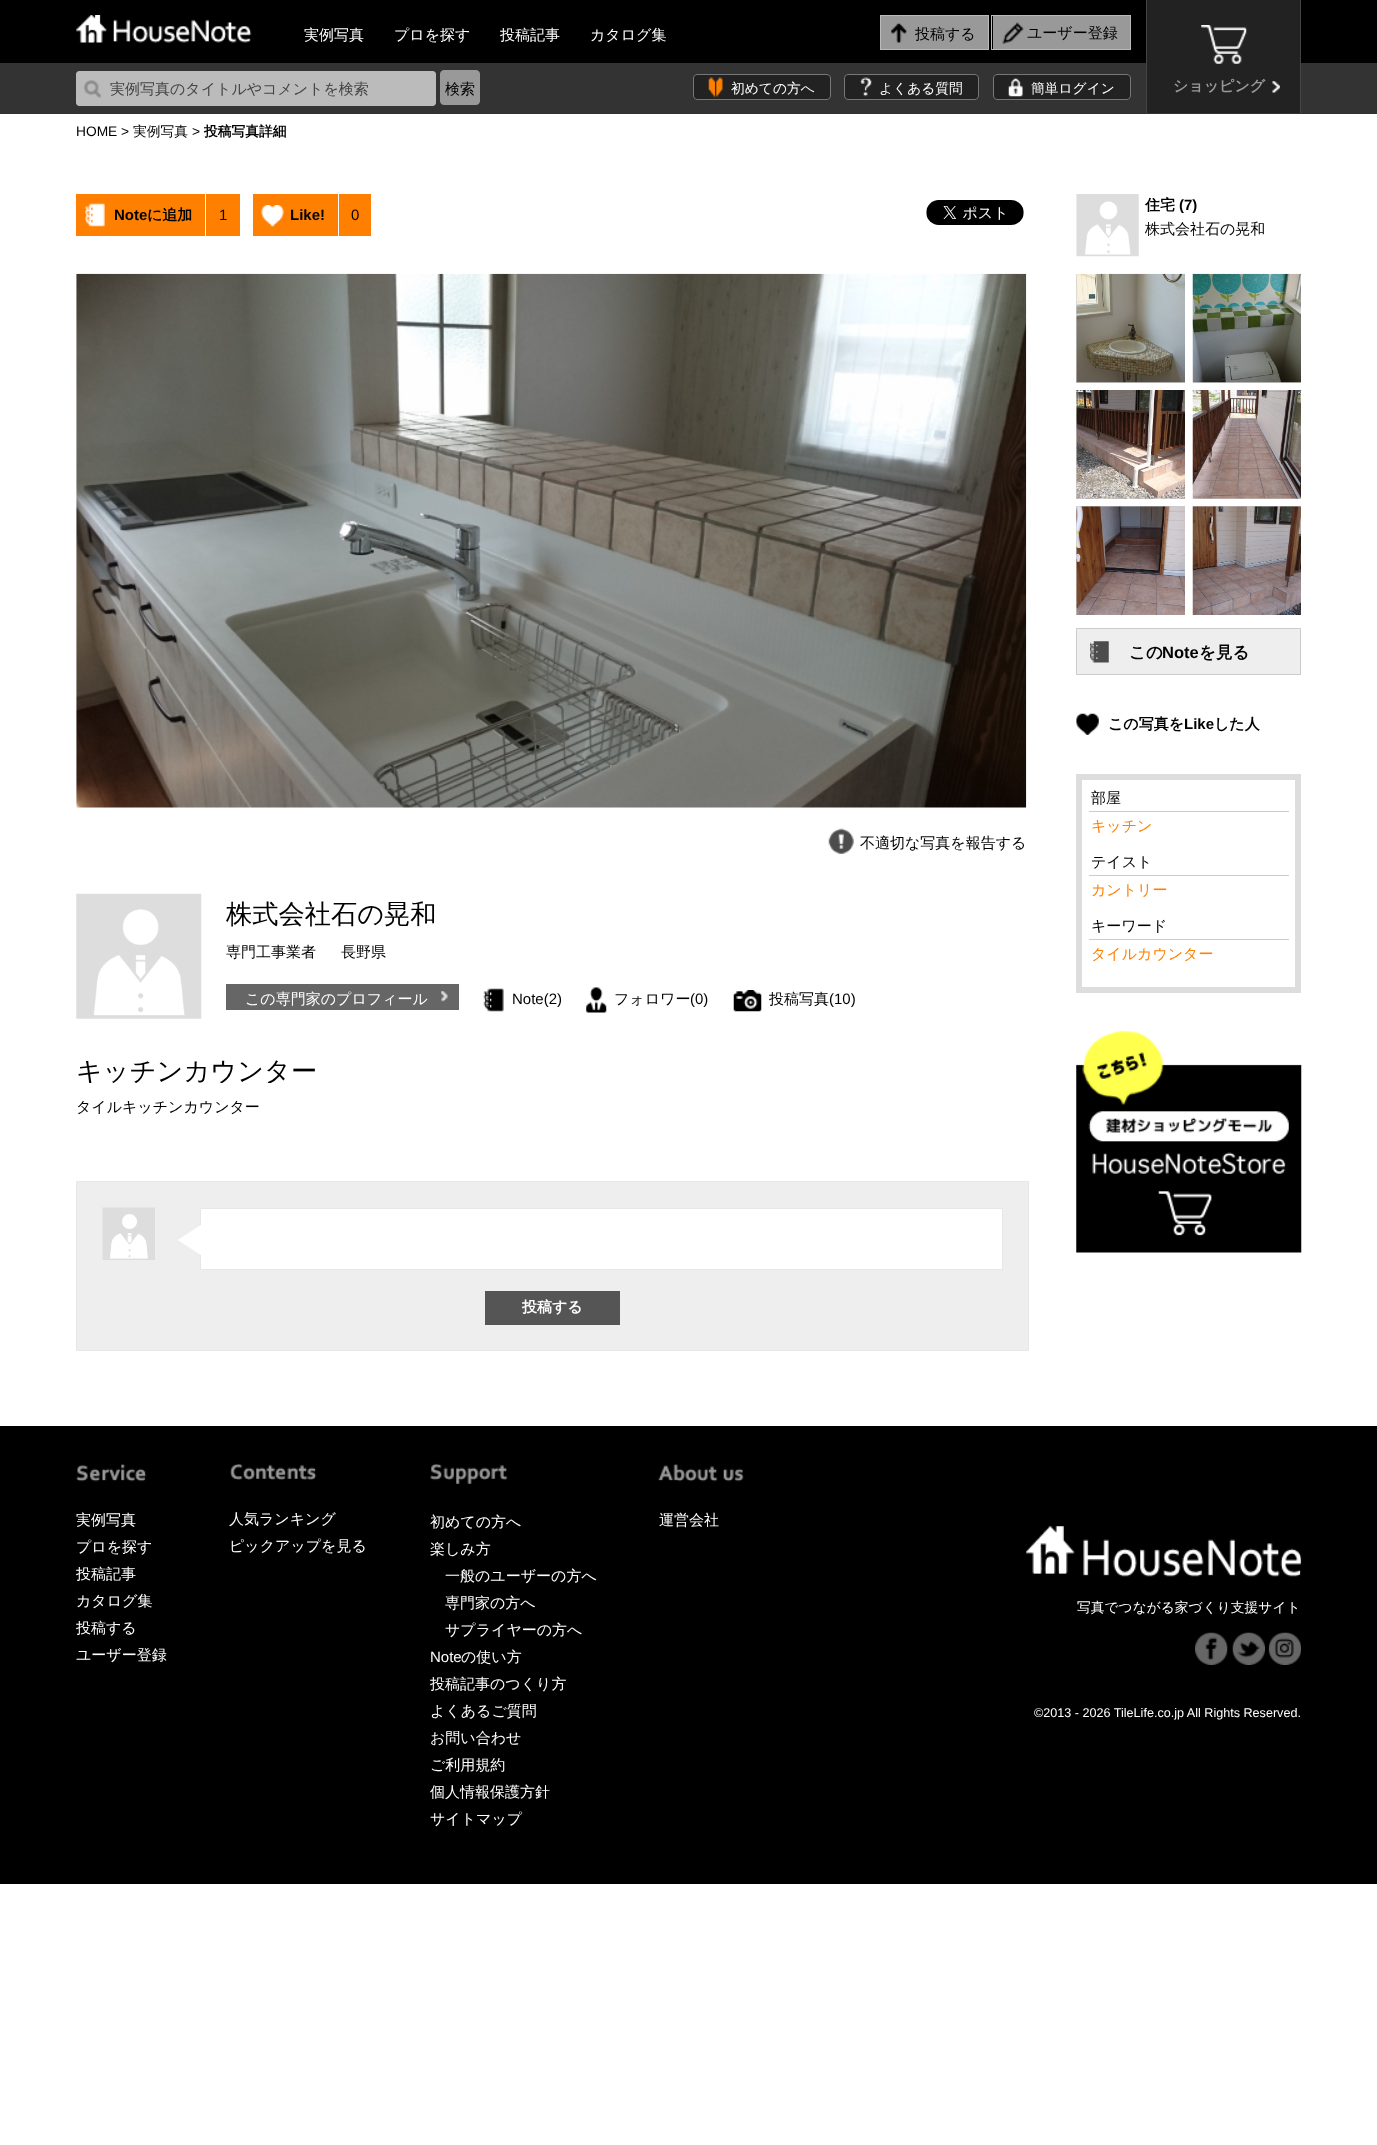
<!DOCTYPE html>
<meta charset="utf-8">
<style>body { margin: 0 } canvas { display: block }</style>
<canvas id="canvas" width="1377" height="2145"></canvas>
<script type="module">
  const canvas = document.getElementById("canvas");
  const g = canvas.getContext("2d");
  g.miterLimit = 4;
  g.fontKerning = "normal";
  function drawText(s, x, y, [font, color]) {
    g.font = font;
    g.fillStyle = color;
    g.fillText(s, x, y);
  }
  function fillBox(x, y, w, h, color) {
    g.fillStyle = color;
    g.fillRect(x, y, w, h);
  }
  function fillRounded(x, y, w, h, r, color) {
    g.fillStyle = color;
    g.beginPath();
    g.roundRect(x, y, w, h, r);
    g.fill();
  }
  async function drawPicture(src, x, y, w, h) {
    const img = new Image();
    img.src = src;
    await img.decode();
    g.drawImage(img, x, y, w, h);
  }

  const s1 = ["500 15px WenQuanYi Zen Hei", "#FFFFFF"];
  const s2 = ["500 15px WenQuanYi Zen Hei", "#000000"];
  const s3 = ["bold 15px WenQuanYi Zen Hei", "#999999"];
  const s4 = ["500 15px WenQuanYi Zen Hei", "#444444"];
  const s5 = ["500 13.75px WenQuanYi Zen Hei", "#FFFFFF"];
  const s6 = ["13.75px Liberation Sans", "#000000"];
  const s7 = ["500 13.75px WenQuanYi Zen Hei", "#000000"];
  const s8 = ["bold 13.75px WenQuanYi Zen Hei", "#000000"];
  const s9 = ["bold 15px Liberation Sans", "#000000"];
  const s10 = ["bold 15px WenQuanYi Zen Hei", "#000000"];
  const s11 = ["15px Liberation Sans", "#000000"];
  const s12 = ["500 26.25px WenQuanYi Zen Hei", "#000000"];
  const s13 = ["bold 15px WenQuanYi Zen Hei", "#FFFFFF"];
  const s14 = ["bold 16.5px WenQuanYi Zen Hei", "#000000"];
  const s15 = ["bold 16.5px Liberation Sans", "#000000"];
  const s16 = ["500 15px WenQuanYi Zen Hei", "#FF8000"];
  const s17 = ["15px Liberation Sans", "#FFFFFF"];
  const s18 = ["12.6px Liberation Sans", "#FFFFFF"];

  fillBox(0, 0, 1377, 2145, "#FFFFFF");
  fillBox(0, 0, 1377, 63, "#000000");
  await drawPicture("pic1.png", 76, 15, 176, 28);
  drawText("実例写真", 304, 40, s1);
  drawText("プロを探す", 394, 40, s1);
  drawText("投稿記事", 500, 40, s1);
  drawText("カタログ集", 590, 40, s1);
  g.strokeStyle = "#BBBBBB";
  g.strokeRect(880.5, 15.5, 108, 34);
  fillBox(881, 16, 107, 33, "#999999");
  await drawPicture("pic2.png", 891, 23, 16, 20);
  drawText("投稿する", 915, 39, s2);
  g.strokeRect(991.5, 15.5, 139, 34);
  fillBox(993, 16, 137, 33, "#999999");
  await drawPicture("pic3.png", 1002, 22, 22, 22);
  drawText("ユーザー登録", 1027, 38, s2);
  fillBox(0, 63, 1377, 51, "#333333");
  fillBox(1147, 0, 153, 113, "#222222");
  await drawPicture("pic4.png", 1201, 25, 46, 39);
  fillBox(1300, 0, 1, 113, "#444444");
  fillBox(1146, 0, 1, 113, "#444444");
  await drawPicture("pic5.png", 1272, 81, 8, 12);
  drawText("ショッピング", 1173, 91, s3);
  fillRounded(76, 71, 360, 35, 4, "#BBBBBB");
  await drawPicture("pic6.png", 83, 80, 19, 18);
  g.beginPath();
  g.roundRect(76.5, 71.5, 359, 34, 3.5);
  g.stroke();
  drawText("実例写真のタイトルやコメントを検索", 110, 94, s4);
  g.fillStyle = "#999999";
  g.beginPath();
  g.roundRect(440.5, 70.5, 39, 34, 3.5);
  g.fill();
  g.strokeStyle = "#999999";
  g.stroke();
  drawText("検索", 445, 94, s2);
  fillRounded(693, 74, 138, 26, 4, "#222222");
  await drawPicture("pic7.png", 708, 77, 15, 21);
  g.beginPath();
  g.roundRect(693.5, 74.5, 137, 25, 3.5);
  g.strokeStyle = "#777777";
  g.stroke();
  drawText("初めての方へ", 731, 93, s5);
  fillRounded(844, 74, 135, 26, 4, "#222222");
  await drawPicture("pic8.png", 860, 77, 12, 20);
  g.beginPath();
  g.roundRect(844.5, 74.5, 134, 25, 3.5);
  g.stroke();
  drawText("よくある質問", 879, 93, s5);
  fillRounded(993, 74, 138, 26, 4, "#222222");
  await drawPicture("pic9.png", 1008, 78, 15, 19);
  g.beginPath();
  g.roundRect(993.5, 74.5, 137, 25, 3.5);
  g.stroke();
  drawText("簡単ログイン", 1031, 93, s5);
  drawText("HOME >", 76, 136, s6);
  drawText("実例写真", 133, 136, s7);
  drawText(">", 192, 136, s6);
  drawText("投稿写真詳細", 204, 136, s8);
  fillBox(76, 194, 129, 42, "#FF8000");
  await drawPicture("pic10.png", 85, 203, 20, 24);
  drawText("Note", 114, 220, s9);
  drawText("に追加", 147, 220, s10);
  fillBox(206, 194, 34, 42, "#FF8000");
  drawText("1", 219, 220, s11);
  fillBox(253, 194, 85, 42, "#FF8000");
  await drawPicture("pic11.png", 261, 205, 23, 22);
  drawText("Like!", 290, 220, s9);
  fillBox(339, 194, 32, 42, "#FF8000");
  drawText("0", 351, 220, s11);
  await drawPicture("pic12.png", 926, 200, 98, 25);
  await drawPicture("pic13.png", 76, 273, 951, 535);
  await drawPicture("pic14.png", 828, 828, 26, 26);
  drawText("不適切な写真を報告する", 860, 848, s2);
  await drawPicture("pic15.png", 76, 893, 126, 126);
  drawText("株式会社石の晃和", 226, 923, s12);
  drawText("専門工事業者", 226, 957, s2);
  drawText("長野県", 341, 957, s2);
  fillBox(226, 984, 233, 26, "#666666");
  drawText("この専門家のプロフィール", 245, 1004, s1);
  await drawPicture("pic16.png", 441, 991, 7, 11);
  await drawPicture("pic17.png", 483, 988, 21, 24);
  drawText("Note(2)", 512, 1004, s11);
  await drawPicture("pic18.png", 586, 987, 21, 26);
  drawText("フォロワー", 614, 1004, s2);
  drawText("(0)", 690, 1004, s11);
  await drawPicture("pic19.png", 733, 990, 29, 22);
  drawText("投稿写真", 769, 1004, s2);
  drawText("(10)", 829, 1004, s11);
  g.save();
  g.beginPath();
  g.rect(76, 1036, 950, 47);
  g.clip();
  drawText("キッチンカウンター", 76, 1080, s12);
  g.restore();
  drawText("タイルキッチンカウンター", 76, 1112, s2);
  g.fillStyle = "#EEEEEE";
  g.beginPath();
  g.rect(76.5, 1181.5, 952, 169);
  g.fill();
  g.strokeStyle = "#E7E7E7";
  g.stroke();
  await drawPicture("pic20.png", 102, 1207, 53, 53);
  g.fillStyle = "#FFFFFF";
  g.beginPath();
  g.rect(200.5, 1208.5, 802, 61);
  g.fill();
  g.stroke();
  g.beginPath();
  g.moveTo(202.5, 1224);
  g.lineTo(202.5, 1256);
  g.lineTo(177.5, 1240);
  g.closePath();
  g.fill();
  fillBox(485, 1291, 135, 34, "#555555");
  drawText("投稿する", 522, 1312, s13);
  await drawPicture("pic21.png", 1076, 194, 63, 63);
  drawText("住宅", 1145, 210, s10);
  drawText("(7)", 1179, 210, s9);
  drawText("株式会社石の晃和", 1145, 234, s2);
  fillBox(1076, 274, 109, 109, "#CCCCCC");
  await drawPicture("pic22.png", 1076, 273, 109, 110);
  fillBox(1193, 382, 108, 1, "#CCCCCC");
  await drawPicture("pic23.png", 1192, 273, 109, 110);
  fillBox(1076, 390, 109, 109, "#CCCCCC");
  await drawPicture("pic24.png", 1076, 390, 109, 109);
  fillBox(1193, 498, 108, 1, "#CCCCCC");
  await drawPicture("pic25.png", 1192, 390, 109, 109);
  fillBox(1076, 506, 109, 109, "#CCCCCC");
  await drawPicture("pic26.png", 1076, 506, 109, 109);
  fillBox(1193, 506, 108, 1, "#CCCCCC");
  await drawPicture("pic27.png", 1192, 506, 109, 109);
  fillBox(1077, 629, 223, 45, "#EEEEEE");
  await drawPicture("pic28.png", 1090, 641, 19, 22);
  g.strokeStyle = "#CCCCCC";
  g.strokeRect(1076.5, 628.5, 224, 46);
  drawText("この", 1129, 658, s14);
  drawText("Note", 1162, 658, s15);
  drawText("を見る", 1199, 658, s14);
  await drawPicture("pic29.png", 1076, 713, 23, 22);
  drawText("この写真を", 1108, 729, s10);
  drawText("Like", 1184, 729, s9);
  drawText("した人", 1214, 729, s10);
  g.strokeStyle = "#DDDDDD";
  g.lineWidth = 6;
  g.strokeRect(1079, 777, 219, 213);
  fillBox(1089, 811, 200, 1, "#CCCCCC");
  drawText("部屋", 1091, 803, s2);
  drawText("キッチン", 1091, 831, s16);
  fillBox(1089, 875, 200, 1, "#CCCCCC");
  drawText("テイスト", 1091, 867, s2);
  drawText("カントリー", 1091, 895, s16);
  fillBox(1089, 939, 200, 1, "#CCCCCC");
  drawText("キーワード", 1091, 931, s2);
  drawText("タイルカウンター", 1091, 959, s16);
  await drawPicture("pic30.png", 1076, 1030, 226, 223);
  fillBox(0, 1426, 1377, 458, "#000000");
  await drawPicture("pic31.png", 76, 1464, 71, 18);
  drawText("実例写真", 76, 1525, s1);
  drawText("プロを探す", 76, 1552, s1);
  drawText("投稿記事", 76, 1579, s1);
  drawText("カタログ集", 76, 1606, s1);
  drawText("投稿する", 76, 1633, s1);
  drawText("ユーザー登録", 76, 1660, s1);
  await drawPicture("pic32.png", 230, 1463, 87, 17);
  drawText("人気ランキング", 229, 1524, s1);
  drawText("ピックアップを見る", 229, 1551, s1);
  await drawPicture("pic33.png", 430, 1463, 78, 21);
  drawText("初めての方へ", 430, 1527, s1);
  drawText("楽しみ方", 430, 1554, s1);
  drawText("一般のユーザーの方へ", 445, 1581, s1);
  drawText("専門家の方へ", 445, 1608, s1);
  drawText("サプライヤーの方へ", 445, 1635, s1);
  drawText("Note", 430, 1662, s17);
  drawText("の使い方", 461, 1662, s1);
  drawText("投稿記事のつくり方", 430, 1689, s1);
  drawText("よくあるご質問", 430, 1716, s1);
  drawText("お問い合わせ", 430, 1743, s1);
  drawText("ご利用規約", 430, 1770, s1);
  drawText("個人情報保護方針", 430, 1797, s1);
  drawText("サイトマップ", 430, 1824, s1);
  await drawPicture("pic34.png", 658, 1464, 86, 18);
  drawText("運営会社", 659, 1525, s1);
  await drawPicture("pic35.png", 1026, 1526, 276, 51);
  drawText("写真でつながる家づくり支援サイト", 1077, 1612, s5);
  await drawPicture("pic36.png", 1195, 1632, 33, 33);
  await drawPicture("pic37.png", 1232, 1632, 33, 33);
  await drawPicture("pic38.png", 1268, 1632, 33, 33);
  drawText("©2013 - 2026 TileLife.co.jp All Rights Reserved.", 1034, 1717, s18);
</script>
